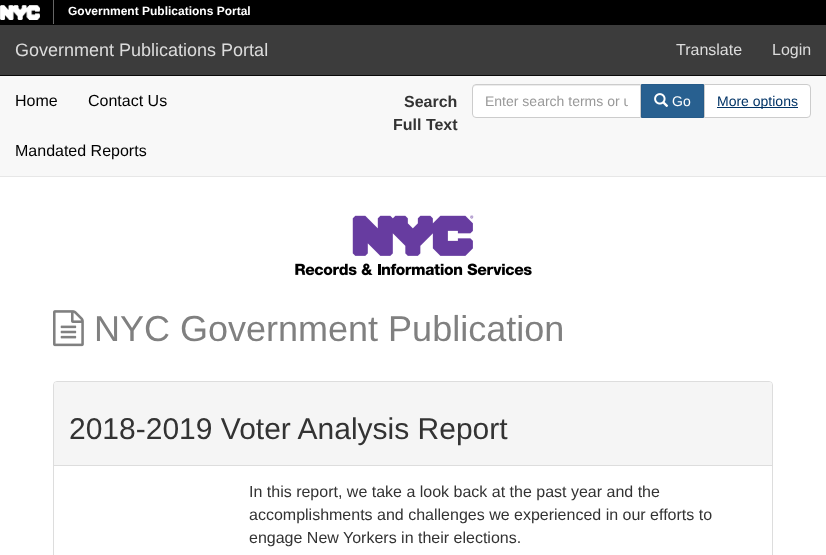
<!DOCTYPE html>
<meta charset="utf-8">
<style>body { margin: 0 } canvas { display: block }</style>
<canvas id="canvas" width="826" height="555"></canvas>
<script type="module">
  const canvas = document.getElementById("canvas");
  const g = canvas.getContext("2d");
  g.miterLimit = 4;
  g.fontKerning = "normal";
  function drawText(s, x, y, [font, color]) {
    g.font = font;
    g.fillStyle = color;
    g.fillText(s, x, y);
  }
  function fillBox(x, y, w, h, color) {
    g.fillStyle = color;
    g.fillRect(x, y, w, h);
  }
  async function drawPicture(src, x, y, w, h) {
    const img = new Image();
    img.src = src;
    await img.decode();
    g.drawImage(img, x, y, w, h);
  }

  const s1 = ["bold 12px Liberation Sans", "#FFFFFF"];
  const s2 = ["18px Liberation Sans", "#DCDCDC"];
  const s3 = ["16px Liberation Sans", "#DCDCDC"];
  const s4 = ["16px Liberation Sans", "#000000"];
  const s5 = ["bold 16px Liberation Sans", "#333333"];
  const s6 = ["14px Liberation Sans", "#999999"];
  const s7 = ["14px Liberation Sans", "#FFFFFF"];
  const s8 = ["14px Liberation Sans", "#003366"];
  const s9 = ["36px Liberation Sans", "#808080"];
  const s10 = ["30px Liberation Sans", "#333333"];
  const s11 = ["16px Liberation Sans", "#333333"];

  fillBox(0, 0, 826, 555, "#FFFFFF");
  fillBox(0, 0, 826, 25, "#000000");
  await drawPicture("pic1.png", 0, 5, 40, 15);
  await drawPicture("pic2.png", 53, 0, 1, 24);
  drawText("Government Publications Portal", 68, 15, s1);
  fillBox(0, 25, 826, 50, "#3C3C3C");
  fillBox(0, 75, 826, 1, "#090909");
  drawText("Government Publications Portal", 15, 56, s2);
  drawText("Translate", 676, 55, s3);
  drawText("Login", 772, 55, s3);
  fillBox(0, 76, 826, 100, "#F8F8F8");
  fillBox(0, 176, 826, 1, "#E7E7E7");
  drawText("Home", 15, 106, s4);
  drawText("Contact Us", 88, 106, s4);
  drawText("Mandated Reports", 15, 156, s4);
  drawText("Search", 404, 107, s5);
  drawText("Full Text", 393, 130, s5);
  g.fillStyle = "#FFFFFF";
  g.beginPath();
  g.roundRect(472, 84, 169, 34, [4, 0, 0, 4]);
  g.fill();
  g.fillStyle = "#ECECEC";
  g.beginPath();
  g.moveTo(476, 86);
  g.lineTo(640, 86);
  g.lineTo(640, 85);
  g.lineTo(475, 85);
  g.bezierCurveTo(473, 85, 473, 87, 473, 89);
  g.bezierCurveTo(473, 87, 474, 86, 476, 86);
  g.closePath();
  g.fill();
  g.beginPath();
  g.roundRect(472.5, 84.5, 168, 33, [3.5, 0, 0, 3.5]);
  g.strokeStyle = "#CCCCCC";
  g.stroke();
  g.save();
  g.beginPath();
  g.rect(485, 93, 143, 16);
  g.clip();
  drawText("Enter search terms or u", 485, 106, s6);
  g.restore();
  g.fillStyle = "#286090";
  g.beginPath();
  g.rect(641.5, 84.5, 62, 33);
  g.fill();
  g.strokeStyle = "#265B89";
  g.stroke();
  await drawPicture("pic3.png", 654, 93, 15, 14);
  drawText("Go", 672, 106, s7);
  g.beginPath();
  g.roundRect(704.5, 84.5, 106, 33, [0, 3.5, 3.5, 0]);
  g.fill();
  g.strokeStyle = "#CCCCCC";
  g.stroke();
  fillBox(717, 107, 81, 1, "#003366");
  drawText("More options", 717, 106, s8);
  await drawPicture("pic4.png", 295, 215, 237, 61);
  await drawPicture("pic5.png", 53, 310, 31, 37);
  drawText("NYC Government Publication", 94, 341, s9);
  g.beginPath();
  g.roundRect(53.5, 381.5, 719, 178, 3.5);
  g.strokeStyle = "#DDDDDD";
  g.stroke();
  g.fillStyle = "#F5F5F5";
  g.beginPath();
  g.roundRect(54, 382, 718, 84, [3, 3, 0, 0]);
  g.fill();
  fillBox(54, 465, 718, 1, "#DDDDDD");
  drawText("2018-2019 Voter Analysis Report", 69, 439, s10);
  drawText("In this report, we take a look back at the past year and the", 249, 497, s11);
  drawText("accomplishments and challenges we experienced in our efforts to", 249, 520, s11);
  drawText("engage New Yorkers in their elections.", 249, 543, s11);
</script>
